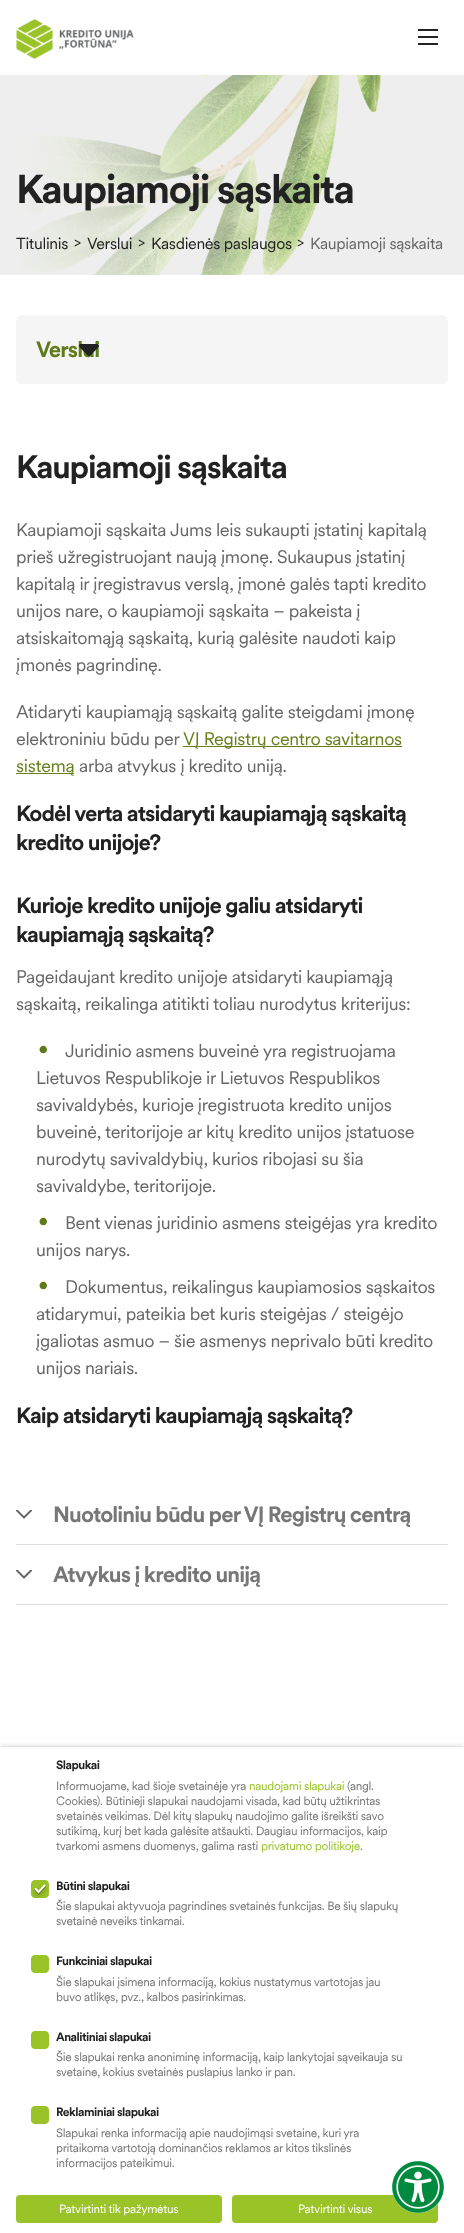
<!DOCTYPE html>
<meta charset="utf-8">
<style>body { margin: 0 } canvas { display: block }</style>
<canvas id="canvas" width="464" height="2233"></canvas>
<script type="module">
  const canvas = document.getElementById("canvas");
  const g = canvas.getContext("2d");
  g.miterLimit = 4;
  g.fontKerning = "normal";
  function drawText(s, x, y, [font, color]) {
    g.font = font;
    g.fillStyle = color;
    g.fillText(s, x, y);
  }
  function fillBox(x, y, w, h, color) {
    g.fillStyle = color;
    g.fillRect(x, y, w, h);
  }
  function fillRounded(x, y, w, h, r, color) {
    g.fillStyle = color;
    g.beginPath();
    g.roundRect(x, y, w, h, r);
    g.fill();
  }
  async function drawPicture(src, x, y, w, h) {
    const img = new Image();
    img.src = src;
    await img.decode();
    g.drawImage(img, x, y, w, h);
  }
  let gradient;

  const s1 = ["bold 40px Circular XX", "#222222"];
  const s2 = ["16px Circular XX", "#222222"];
  const s3 = ["14px Circular XX", "#222222"];
  const s4 = ["16px Circular XX", "#666666"];
  const s5 = ["bold 22px Circular XX", "#607919"];
  const s6 = ["bold 32px Circular XX", "#222222"];
  const s7 = ["18px Circular XX", "#666666"];
  const s8 = ["18px Circular XX", "#65801A"];
  const s9 = ["bold 22px Circular XX", "#222222"];
  const s10 = ["60px Circular XX", "#607919"];
  const s11 = ["bold 22px Circular XX", "#777777"];
  const s12 = ["bold 12px Circular XX", "#222222"];
  const s13 = ["12px Circular XX", "#777777"];
  const s14 = ["12px Circular XX", "#9AC328"];
  const s15 = ["12px Circular XX", "#FFFFFF"];

  fillBox(0, 0, 464, 2233, "#FFFFFF");
  await drawPicture("pic1.png", 16, 19, 118, 40);
  fillBox(418, 29, 20, 2, "#222222");
  fillBox(418, 36, 20, 2, "#222222");
  fillBox(418, 43, 20, 2, "#222222");
  fillBox(0, 75, 464, 200, "#EEEEEE");
  await drawPicture("pic2.png", 19, 75, 362, 200);
  gradient = g.createLinearGradient(16, 175, 448, 175);
  gradient.addColorStop(0, "#EEEEEE");
  gradient.addColorStop(1, "rgba(238, 238, 238, 0)");
  g.fillStyle = gradient;
  g.fillRect(19, 75, 362, 200);
  g.letterSpacing = "-1.6px";
  drawText("Kaupiamoji sąskaita", 16, 203, s1);
  g.letterSpacing = "-0.32px";
  drawText("Titulinis", 16, 249, s2);
  drawText(">", 74, 247, s3);
  drawText("Verslui", 87, 249, s2);
  drawText(">", 138, 247, s3);
  drawText("Kasdienės paslaugos", 151, 249, s2);
  drawText(">", 297, 247, s3);
  drawText("Kaupiamoji sąskaita", 310, 249, s4);
  fillRounded(16, 315, 432, 69, 6, "#F5F5F5");
  g.letterSpacing = "-0.9px";
  drawText("Verslui", 36, 357, s5);
  await drawPicture("pic3.png", 79, 344, 20, 12);
  g.letterSpacing = "-1.25px";
  drawText("Kaupiamoji sąskaita", 16, 478, s6);
  g.letterSpacing = "-0.32px";
  drawText("Kaupiamoji sąskaita Jums leis sukaupti įstatinį kapitalą", 16, 536, s7);
  drawText("prieš užregistruojant naują įmonę. Sukaupus įstatinį", 16, 563, s7);
  drawText("kapitalą ir įregistravus verslą, įmonė galės tapti kredito", 16, 590, s7);
  drawText("unijos nare, o kaupiamoji sąskaita – pakeista į", 16, 617, s7);
  drawText("atsiskaitomąją sąskaitą, kurią galėsite naudoti kaip", 16, 644, s7);
  drawText("įmonės pagrindinę.", 16, 671, s7);
  drawText("Atidaryti kaupiamąją sąskaitą galite steigdami įmonę", 16, 718, s7);
  drawText("elektroniniu būdu per", 16, 745, s7);
  fillBox(183, 746, 219, 1, "#65801A");
  drawText("VĮ Registrų centro savitarnos", 183, 745, s8);
  fillBox(16, 773, 58, 1, "#65801A");
  drawText("sistemą", 16, 772, s8);
  drawText("arba atvykus į kredito uniją.", 79, 772, s7);
  g.letterSpacing = "-0.9px";
  drawText("Kodėl verta atsidaryti kaupiamąją sąskaitą", 16, 821, s9);
  drawText("kredito unijoje?", 16, 850, s9);
  drawText("Kurioje kredito unijoje galiu atsidaryti", 16, 913, s9);
  drawText("kaupiamąją sąskaitą?", 16, 942, s9);
  g.letterSpacing = "-0.32px";
  drawText("Pageidaujant kredito unijoje atsidaryti kaupiamąją", 16, 983, s7);
  drawText("sąskaitą, reikalinga atitikti toliau nurodytus kriterijus:", 16, 1010, s7);
  drawText(".", 36, 1053, s10);
  drawText("Juridinio asmens buveinė yra registruojama", 65, 1057, s7);
  drawText("Lietuvos Respublikoje ir Lietuvos Respublikos", 36, 1084, s7);
  drawText("savivaldybės, kurioje įregistruota kredito unijos", 36, 1111, s7);
  drawText("buveinė, teritorijoje ar kitų kredito unijos įstatuose", 36, 1138, s7);
  drawText("nurodytų savivaldybių, kurios ribojasi su šia", 36, 1165, s7);
  drawText("savivaldybe, teritorijoje.", 36, 1192, s7);
  drawText(".", 36, 1225, s10);
  drawText("Bent vienas juridinio asmens steigėjas yra kredito", 65, 1229, s7);
  drawText("unijos narys.", 36, 1256, s7);
  drawText(".", 36, 1289, s10);
  drawText("Dokumentus, reikalingus kaupiamosios sąskaitos", 65, 1293, s7);
  drawText("atidarymui, pateikia bet kuris steigėjas / steigėjo", 36, 1320, s7);
  drawText("įgaliotas asmuo – šie asmenys neprivalo būti kredito", 36, 1347, s7);
  drawText("unijos nariais.", 36, 1374, s7);
  g.letterSpacing = "-0.9px";
  drawText("Kaip atsidaryti kaupiamąją sąskaitą?", 16, 1423, s9);
  fillBox(16, 1544, 432, 1, "#DDDDDD");
  g.save();
  g.beginPath();
  g.rect(16, 1510, 16, 9);
  g.clip();
  g.beginPath();
  g.moveTo(31, 1510.5);
  g.lineTo(24, 1517.5);
  g.lineTo(17, 1510.5);
  g.strokeStyle = "#666666";
  g.lineWidth = 2;
  g.lineCap = "round";
  g.lineJoin = "round";
  g.stroke();
  g.restore();
  drawText("Nuotoliniu būdu per VĮ Registrų centrą", 53, 1522, s11);
  fillBox(16, 1604, 432, 1, "#DDDDDD");
  g.save();
  g.beginPath();
  g.rect(16, 1570, 16, 9);
  g.clip();
  g.beginPath();
  g.moveTo(31, 1570.5);
  g.lineTo(24, 1577.5);
  g.lineTo(17, 1570.5);
  g.strokeStyle = "#666666";
  g.lineWidth = 2;
  g.lineCap = "round";
  g.lineJoin = "round";
  g.stroke();
  g.restore();
  drawText("Atvykus į kredito uniją", 53, 1582, s11);
  g.fillStyle = "rgba(0, 0, 0, 0.24)";
  g.filter = "blur(2.5px)";
  g.beginPath();
  g.rect(0, 1747, 464, 486);
  g.fill();
  g.filter = "none";
  fillBox(0, 1747, 464, 486, "#FFFFFF");
  g.letterSpacing = "-0.5px";
  drawText("Slapukai", 56, 1769, s12);
  g.letterSpacing = "-0.32px";
  drawText("Informuojame, kad šioje svetainėje yra", 56, 1790, s13);
  drawText("naudojami slapukai", 249, 1790, s14);
  drawText("(angl.", 347, 1790, s13);
  drawText("Cookies). Būtinieji slapukai naudojami visada, kad būtų užtikrintas", 56, 1805, s13);
  drawText("svetainės veikimas. Dėl kitų slapukų naudojimo galite išreikšti savo", 56, 1820, s13);
  drawText("sutikimą, kurį bet kada galėsite atšaukti. Daugiau informacijos, kaip", 56, 1835, s13);
  drawText("tvarkomi asmens duomenys, galima rasti", 56, 1850, s13);
  drawText("privatumo politikoje", 261, 1850, s14);
  drawText(".", 360, 1850, s13);
  await drawPicture("pic4.png", 31, 1880, 18, 18);
  g.letterSpacing = "-0.5px";
  drawText("Būtini slapukai", 56, 1890, s12);
  g.letterSpacing = "-0.32px";
  drawText("Šie slapukai aktyvuoja pagrindines svetainės funkcijas. Be šių slapukų", 56, 1910, s13);
  drawText("svetainė neveiks tinkamai.", 56, 1925, s13);
  await drawPicture("pic5.png", 31, 1955, 18, 18);
  g.letterSpacing = "-0.5px";
  drawText("Funkciniai slapukai", 56, 1965, s12);
  g.letterSpacing = "-0.32px";
  drawText("Šie slapukai įsimena informaciją, kokius nustatymus vartotojas jau", 56, 1986, s13);
  drawText("buvo atlikęs, pvz., kalbos pasirinkimas.", 56, 2001, s13);
  await drawPicture("pic5.png", 31, 2031, 18, 18);
  g.letterSpacing = "-0.5px";
  drawText("Analitiniai slapukai", 56, 2041, s12);
  g.letterSpacing = "-0.32px";
  drawText("Šie slapukai renka anoniminę informaciją, kaip lankytojai sąveikauja su", 56, 2061, s13);
  drawText("svetaine, kokius svetainės puslapius lanko ir pan.", 56, 2076, s13);
  await drawPicture("pic5.png", 31, 2106, 18, 18);
  g.letterSpacing = "-0.5px";
  drawText("Reklaminiai slapukai", 56, 2116, s12);
  g.letterSpacing = "-0.32px";
  drawText("Slapukai renka informaciją apie naudojimąsi svetaine, kuri yra", 56, 2137, s13);
  drawText("pritaikoma vartotoją dominančios reklamos ar kitos tikslinės", 56, 2152, s13);
  drawText("informacijos pateikimui.", 56, 2167, s13);
  fillRounded(16, 2195, 206, 28, 4, "#9AC328");
  drawText("Patvirtinti tik pažymėtus", 59, 2213, s15);
  fillRounded(232, 2195, 206, 28, 4, "#9AC328");
  drawText("Patvirtinti visus", 298, 2213, s15);
  g.beginPath();
  g.arc(418, 2187, 26, 0, Math.PI * 2);
  g.fill();
  await drawPicture("pic6.png", 392, 2161, 52, 52);
</script>
